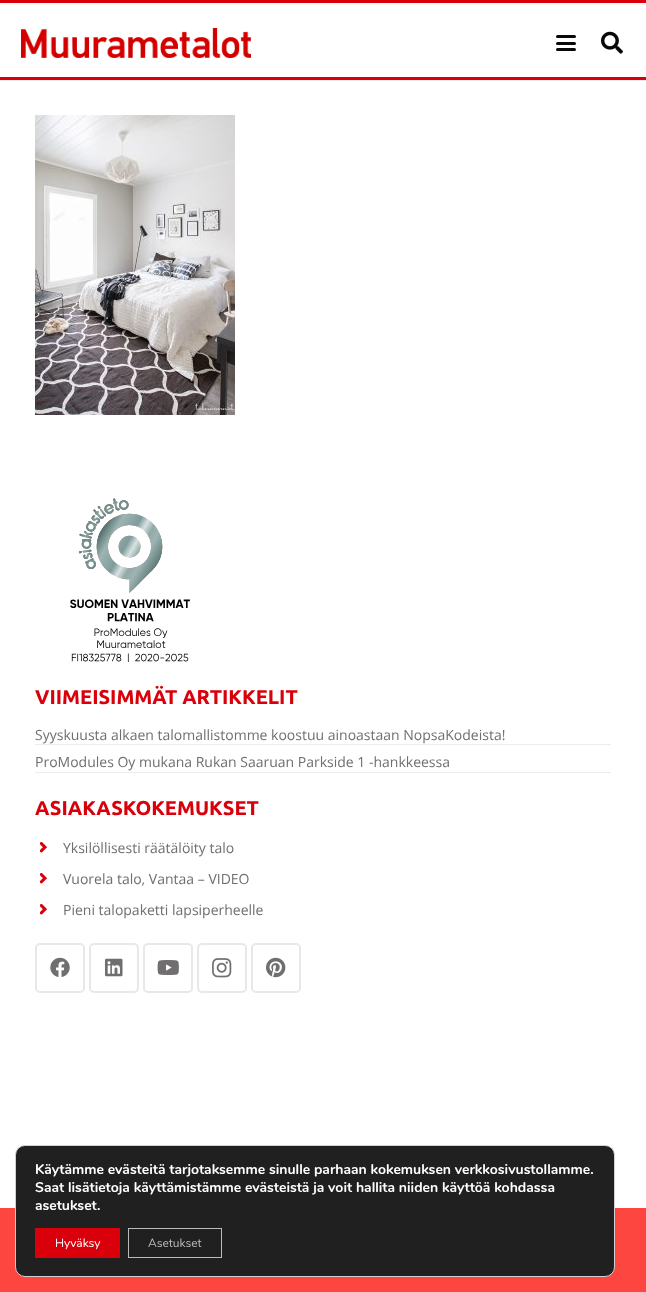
<!DOCTYPE html>
<meta charset="utf-8">
<style>body { margin: 0 } canvas { display: block }</style>
<canvas id="canvas" width="646" height="1292"></canvas>
<script type="module">
  const canvas = document.getElementById("canvas");
  const g = canvas.getContext("2d");
  g.miterLimit = 4;
  g.fontKerning = "normal";
  function drawText(s, x, y, [font, color]) {
    g.font = font;
    g.fillStyle = color;
    g.fillText(s, x, y);
  }
  function fillBox(x, y, w, h, color) {
    g.fillStyle = color;
    g.fillRect(x, y, w, h);
  }
  function fillRounded(x, y, w, h, r, color) {
    g.fillStyle = color;
    g.beginPath();
    g.roundRect(x, y, w, h, r);
    g.fill();
  }
  async function drawPicture(src, x, y, w, h) {
    const img = new Image();
    img.src = src;
    await img.decode();
    g.drawImage(img, x, y, w, h);
  }

  const s1 = ["bold 20px Ubuntu", "#D9000B"];
  const s2 = ["14px Open Sans", "#706E6E"];
  const s3 = ["bold 14px Nunito", "#FFFFFF"];
  const s4 = ["12px Nunito", "#FFFFFF"];
  const s5 = ["12px Nunito", "#BCBCBC"];

  fillBox(0, 0, 646, 1292, "#FE4641");
  fillBox(0, 3, 646, 1205, "#FFFFFF");
  fillBox(0, 80, 646, 1, "#EBEBEB");
  fillBox(0, 0, 646, 3, "#D9000B");
  fillBox(0, 77, 646, 3, "#D9000B");
  await drawPicture("pic1.png", 21, 28, 230, 30);
  fillRounded(556, 42, 20, 3, 1.5, "#080808");
  fillRounded(556, 35, 20, 3, 1.5, "#080808");
  fillRounded(556, 48, 20, 3, 1.5, "#080808");
  await drawPicture("pic2.png", 601, 31, 22, 23);
  await drawPicture("pic3.png", 35, 115, 200, 300);
  await drawPicture("pic4.png", 70, 498, 120, 164);
  drawText("VIIMEISIMMÄT ARTIKKELIT", 35, 704, s1);
  fillBox(35, 744, 576, 1, "#ECECEC");
  drawText("Syyskuusta alkaen talomallistomme koostuu ainoastaan NopsaKodeista!", 35, 740, s2);
  fillBox(35, 772, 576, 1, "#ECECEC");
  drawText("ProModules Oy mukana Rukan Saaruan Parkside 1 -hankkeessa", 35, 767, s2);
  drawText("ASIAKASKOKEMUKSET", 35, 815, s1);
  await drawPicture("pic5.png", 40, 842, 7, 11);
  drawText("Yksilöllisesti räätälöity talo", 63, 853, s2);
  await drawPicture("pic5.png", 40, 873, 7, 11);
  drawText("Vuorela talo, Vantaa – VIDEO", 63, 884, s2);
  await drawPicture("pic5.png", 40, 904, 7, 11);
  drawText("Pieni talopaketti lapsiperheelle", 63, 915, s2);
  g.beginPath();
  g.roundRect(36, 944, 48, 48, 4);
  g.strokeStyle = "#E8E8E8";
  g.lineWidth = 2;
  g.stroke();
  await drawPicture("pic6.png", 50, 957, 20, 20);
  g.beginPath();
  g.roundRect(90, 944, 48, 48, 4);
  g.stroke();
  await drawPicture("pic7.png", 105, 958, 18, 19);
  g.beginPath();
  g.roundRect(144, 944, 48, 48, 4);
  g.stroke();
  await drawPicture("pic8.png", 157, 960, 22, 15);
  g.beginPath();
  g.roundRect(198, 944, 48, 48, 4);
  g.stroke();
  await drawPicture("pic9.png", 212, 958, 20, 20);
  g.beginPath();
  g.roundRect(252, 944, 48, 48, 4);
  g.stroke();
  await drawPicture("pic10.png", 266, 957, 20, 21);
  g.fillStyle = "#202020";
  g.beginPath();
  g.roundRect(15.5, 1145.5, 599, 131, 9.5);
  g.fill();
  g.strokeStyle = "#D3CED2";
  g.lineWidth = 1;
  g.stroke();
  drawText("Käytämme evästeitä tarjotaksemme sinulle parhaan kokemuksen verkkosivustollamme.", 35, 1174, s3);
  drawText("Saat lisätietoja käyttämistämme evästeistä ja voit hallita niiden käyttöä kohdassa", 35, 1192, s3);
  drawText("asetukset.", 35, 1210, s3);
  fillBox(35, 1228, 85, 30, "#D9000B");
  drawText("Hyväksy", 55, 1247, s4);
  g.strokeStyle = "#BCBCBC";
  g.strokeRect(128.5, 1228.5, 93, 29);
  drawText("Asetukset", 148, 1247, s5);
</script>
